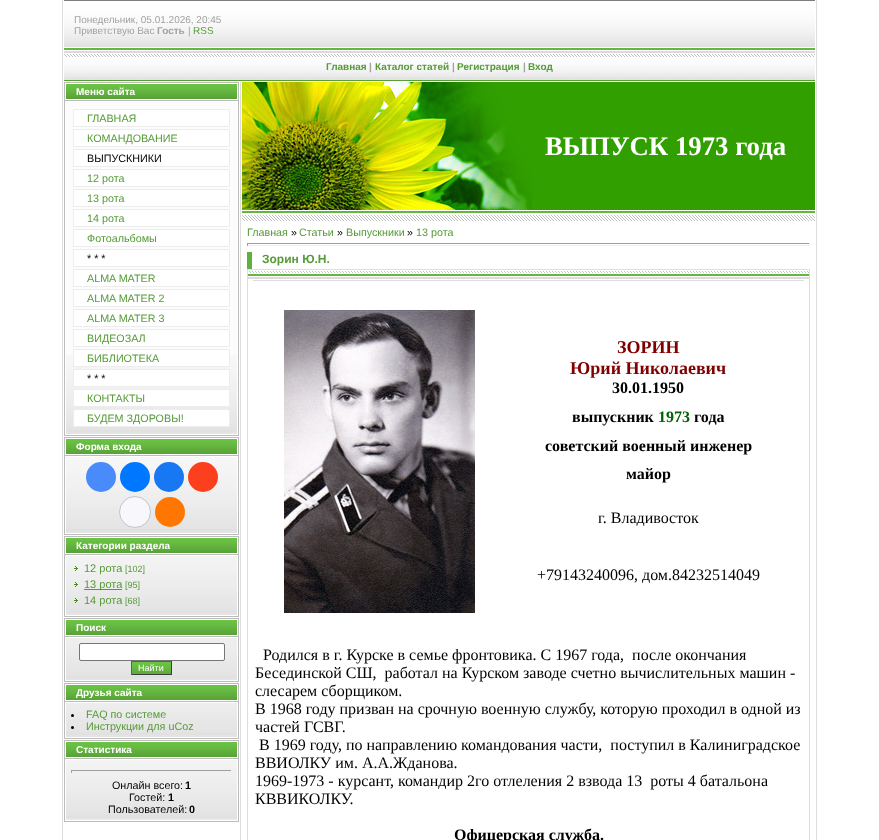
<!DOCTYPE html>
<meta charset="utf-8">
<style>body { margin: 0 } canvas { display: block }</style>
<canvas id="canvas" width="879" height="840"></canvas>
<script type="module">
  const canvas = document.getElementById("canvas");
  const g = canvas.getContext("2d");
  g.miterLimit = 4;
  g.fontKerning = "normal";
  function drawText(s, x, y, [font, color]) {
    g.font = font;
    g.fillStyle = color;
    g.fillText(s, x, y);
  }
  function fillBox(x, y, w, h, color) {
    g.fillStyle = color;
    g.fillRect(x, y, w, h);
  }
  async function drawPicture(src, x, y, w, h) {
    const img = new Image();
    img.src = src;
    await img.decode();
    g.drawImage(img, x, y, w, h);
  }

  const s1 = ["10px Liberation Sans", "#A1A1A1"];
  const s2 = ["bold 10px Liberation Sans", "#A1A1A1"];
  const s3 = ["10px Liberation Sans", "#559B36"];
  const s4 = ["bold 10px Liberation Sans", "#559B36"];
  const s5 = ["bold 10px Liberation Sans", "#FFFFFF"];
  const s6 = ["10.75px Liberation Sans", "#559B36"];
  const s7 = ["10.75px Liberation Sans", "#000000"];
  const s8 = ["11px Liberation Sans", "#559B36"];
  const s9 = ["9px Liberation Sans", "#559B36"];
  const s10 = ["9px Liberation Sans", "#FFFFFF"];
  const s11 = ["bold 10.75px Liberation Sans", "#000000"];
  const s12 = ["bold 26.75px Liberation Serif", "#FFFFFF"];
  const s13 = ["bold 12px Liberation Sans", "#559B36"];
  const s14 = ["bold 18px Liberation Serif", "#800000"];
  const s15 = ["bold 16px Liberation Serif", "#000000"];
  const s16 = ["bold 16px Liberation Serif", "#006400"];
  const s17 = ["16px Liberation Serif", "#000000"];

  fillBox(0, 0, 879, 840, "#FFFFFF");
  fillBox(816, 0, 1, 840, "#DEDEDE");
  fillBox(62, 0, 1, 840, "#DEDEDE");
  await drawPicture("pic1.png", 64, 0, 751, 50);
  drawText("Понедельник, 05.01.2026, 20:45", 74, 23, s1);
  drawText("Приветствую Вас", 74, 34, s1);
  drawText("Гость", 157, 34, s2);
  drawText("|", 188, 34, s1);
  drawText("RSS", 193, 34, s3);
  await drawPicture("pic2.png", 64, 51, 751, 30);
  drawText("Главная", 326, 70, s4);
  drawText("|", 369, 70, s2);
  drawText("Каталог статей", 375, 70, s4);
  drawText("|", 452, 70, s2);
  drawText("Регистрация", 457, 70, s4);
  drawText("|", 523, 70, s2);
  drawText("Вход", 528, 70, s4);
  fillBox(64, 82, 175, 354, "#BCBCBC");
  await drawPicture("pic3.png", 66, 84, 171, 15);
  g.strokeStyle = "#FFFFFF";
  g.strokeRect(65.5, 83.5, 172, 16);
  drawText("Меню сайта", 76, 95, s5);
  fillBox(66, 102, 171, 253, "#FCFCFC");
  await drawPicture("pic4.png", 66, 355, 171, 79);
  g.strokeRect(65.5, 101.5, 172, 333);
  g.fillStyle = "#FFFFFF";
  g.beginPath();
  g.rect(73.5, 109.5, 156, 17);
  g.fill();
  g.strokeStyle = "#EDEDED";
  g.stroke();
  drawText("ГЛАВНАЯ", 87, 122, s6);
  g.fillStyle = "#FFFFFF";
  g.beginPath();
  g.rect(73.5, 129.5, 156, 17);
  g.fill();
  g.stroke();
  drawText("КОМАНДОВАНИЕ", 87, 142, s6);
  g.fillStyle = "#FFFFFF";
  g.beginPath();
  g.rect(73.5, 149.5, 156, 17);
  g.fill();
  g.stroke();
  drawText("ВЫПУСКНИКИ", 87, 162, s7);
  g.fillStyle = "#FFFFFF";
  g.beginPath();
  g.rect(73.5, 169.5, 156, 17);
  g.fill();
  g.stroke();
  drawText("12 рота", 87, 182, s6);
  g.fillStyle = "#FFFFFF";
  g.beginPath();
  g.rect(73.5, 189.5, 156, 17);
  g.fill();
  g.stroke();
  drawText("13 рота", 87, 202, s6);
  g.fillStyle = "#FFFFFF";
  g.beginPath();
  g.rect(73.5, 209.5, 156, 17);
  g.fill();
  g.stroke();
  drawText("14 рота", 87, 222, s6);
  g.fillStyle = "#FFFFFF";
  g.beginPath();
  g.rect(73.5, 229.5, 156, 17);
  g.fill();
  g.stroke();
  drawText("Фотоальбомы", 87, 242, s6);
  g.fillStyle = "#FFFFFF";
  g.beginPath();
  g.rect(73.5, 249.5, 156, 17);
  g.fill();
  g.stroke();
  drawText("* * *", 87, 262, s7);
  g.fillStyle = "#FFFFFF";
  g.beginPath();
  g.rect(73.5, 269.5, 156, 17);
  g.fill();
  g.stroke();
  drawText("ALMA MATER", 87, 282, s6);
  g.fillStyle = "#FFFFFF";
  g.beginPath();
  g.rect(73.5, 289.5, 156, 17);
  g.fill();
  g.stroke();
  drawText("ALMA MATER 2", 87, 302, s6);
  g.fillStyle = "#FFFFFF";
  g.beginPath();
  g.rect(73.5, 309.5, 156, 17);
  g.fill();
  g.stroke();
  drawText("ALMA MATER 3", 87, 322, s6);
  g.fillStyle = "#FFFFFF";
  g.beginPath();
  g.rect(73.5, 329.5, 156, 17);
  g.fill();
  g.stroke();
  drawText("ВИДЕОЗАЛ", 87, 342, s6);
  g.fillStyle = "#FFFFFF";
  g.beginPath();
  g.rect(73.5, 349.5, 156, 17);
  g.fill();
  g.stroke();
  drawText("БИБЛИОТЕКА", 87, 362, s6);
  g.fillStyle = "#FFFFFF";
  g.beginPath();
  g.rect(73.5, 369.5, 156, 17);
  g.fill();
  g.stroke();
  drawText("* * *", 87, 382, s7);
  g.fillStyle = "#FFFFFF";
  g.beginPath();
  g.rect(73.5, 389.5, 156, 17);
  g.fill();
  g.stroke();
  drawText("КОНТАКТЫ", 87, 402, s6);
  g.fillStyle = "#FFFFFF";
  g.beginPath();
  g.rect(73.5, 409.5, 156, 17);
  g.fill();
  g.stroke();
  drawText("БУДЕМ ЗДОРОВЫ!", 87, 422, s6);
  fillBox(64, 437, 175, 98, "#BCBCBC");
  await drawPicture("pic3.png", 66, 439, 171, 15);
  g.strokeStyle = "#FFFFFF";
  g.strokeRect(65.5, 438.5, 172, 16);
  drawText("Форма входа", 76, 450, s5);
  await drawPicture("pic5.png", 66, 457, 171, 76);
  g.strokeRect(65.5, 456.5, 172, 77);
  g.fillStyle = "#498BFA";
  g.beginPath();
  g.arc(101, 477, 15, 0, Math.PI * 2);
  g.fill();
  g.fillStyle = "#0077FF";
  g.beginPath();
  g.arc(135, 477, 15, 0, Math.PI * 2);
  g.fill();
  g.fillStyle = "#1877F2";
  g.beginPath();
  g.arc(169, 477, 15, 0, Math.PI * 2);
  g.fill();
  g.fillStyle = "#FC3F1D";
  g.beginPath();
  g.arc(203, 477, 15, 0, Math.PI * 2);
  g.fill();
  g.fillStyle = "#F8F8FC";
  g.beginPath();
  g.arc(135, 512, 15.5, 0, Math.PI * 2);
  g.fill();
  g.strokeStyle = "#C4C4C4";
  g.stroke();
  g.fillStyle = "#FF7700";
  g.beginPath();
  g.arc(170, 512, 15, 0, Math.PI * 2);
  g.fill();
  fillBox(64, 536, 175, 81, "#BCBCBC");
  await drawPicture("pic3.png", 66, 538, 171, 15);
  g.strokeStyle = "#FFFFFF";
  g.strokeRect(65.5, 537.5, 172, 16);
  drawText("Категории раздела", 76, 549, s5);
  await drawPicture("pic6.png", 66, 556, 171, 59);
  g.strokeRect(65.5, 555.5, 172, 60);
  await drawPicture("pic7.png", 74, 566, 4, 5);
  drawText("12 рота", 84, 572, s8);
  drawText("[102]", 125, 572, s9);
  await drawPicture("pic8.png", 74, 582, 4, 5);
  fillBox(84, 589, 38, 1, "#559B36");
  drawText("13 рота", 84, 588, s8);
  drawText("[95]", 125, 588, s9);
  await drawPicture("pic9.png", 74, 598, 4, 5);
  drawText("14 рота", 84, 604, s8);
  drawText("[68]", 125, 604, s9);
  fillBox(64, 618, 175, 64, "#BCBCBC");
  await drawPicture("pic3.png", 66, 620, 171, 15);
  g.strokeRect(65.5, 619.5, 172, 16);
  drawText("Поиск", 76, 631, s5);
  await drawPicture("pic10.png", 66, 638, 171, 42);
  g.strokeRect(65.5, 637.5, 172, 43);
  g.beginPath();
  g.roundRect(79.5, 643.5, 145, 17, 1.5);
  g.fill();
  g.strokeStyle = "#767676";
  g.stroke();
  await drawPicture("pic11.png", 132, 662, 39, 12);
  fillBox(131, 661, 41, 1, "#615E58");
  fillBox(171, 661, 1, 14, "#413F3B");
  fillBox(131, 674, 41, 1, "#413F3B");
  fillBox(131, 661, 1, 14, "#615E58");
  drawText("Найти", 138, 671, s10);
  fillBox(64, 683, 175, 56, "#BCBCBC");
  await drawPicture("pic3.png", 66, 685, 171, 15);
  g.strokeStyle = "#FFFFFF";
  g.strokeRect(65.5, 684.5, 172, 16);
  drawText("Друзья сайта", 76, 696, s5);
  await drawPicture("pic12.png", 66, 703, 171, 34);
  g.strokeRect(65.5, 702.5, 172, 35);
  g.fillStyle = "#000000";
  g.beginPath();
  g.arc(72.5, 715.5, 1.5, 0, Math.PI * 2);
  g.fill();
  drawText("FAQ по системе", 86, 718, s6);
  g.fillStyle = "#000000";
  g.beginPath();
  g.arc(72.5, 727.5, 1.5, 0, Math.PI * 2);
  g.fill();
  drawText("Инструкции для uCoz", 86, 730, s6);
  fillBox(64, 740, 175, 82, "#BCBCBC");
  await drawPicture("pic3.png", 66, 742, 171, 15);
  g.strokeRect(65.5, 741.5, 172, 16);
  drawText("Статистика", 76, 753, s5);
  await drawPicture("pic13.png", 66, 760, 171, 60);
  g.strokeRect(65.5, 759.5, 172, 61);
  fillBox(71, 770, 161, 1, "#9F9F9F");
  fillBox(231, 770, 1, 3, "#EEEEEE");
  fillBox(71, 772, 161, 1, "#EEEEEE");
  fillBox(71, 770, 1, 3, "#9F9F9F");
  drawText("Онлайн всего:", 112, 789, s7);
  drawText("1", 185, 789, s11);
  drawText("Гостей:", 129, 801, s7);
  drawText("1", 168, 801, s11);
  drawText("Пользователей:", 108, 813, s7);
  drawText("0", 189, 813, s11);
  fillBox(240, 82, 1, 758, "#DEDEDE");
  fillBox(532, 82, 283, 128, "#319F00");
  await drawPicture("pic14.png", 242, 82, 290, 128);
  drawText("ВЫПУСК 1973 года", 545, 155, s12);
  await drawPicture("pic15.png", 242, 211, 573, 10);
  drawText("Главная", 247, 236, s6);
  drawText("»", 291, 236, s7);
  drawText("Статьи", 299, 236, s6);
  drawText("»", 337, 236, s7);
  drawText("Выпускники", 346, 236, s6);
  drawText("»", 407, 236, s7);
  drawText("13 рота", 416, 236, s6);
  fillBox(247, 243, 563, 1, "#9F9F9F");
  fillBox(809, 243, 1, 3, "#EEEEEE");
  fillBox(247, 245, 563, 1, "#EEEEEE");
  fillBox(247, 243, 1, 3, "#9F9F9F");
  fillBox(247, 252, 5, 17, "#60B03D");
  drawText("Зорин Ю.Н.", 262, 263, s13);
  await drawPicture("pic16.png", 248, 271, 561, 8);
  g.strokeStyle = "#DEDEDE";
  g.strokeRect(247.5, 269.5, 562, 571);
  fillBox(253, 280, 551, 1, "#DDDDDD");
  await drawPicture("pic17.png", 284, 310, 191, 303);
  drawText("ЗОРИН", 617, 353, s14);
  drawText("Юрий Николаевич", 570, 374, s14);
  drawText("30.01.1950", 612, 393, s15);
  drawText("выпускник", 572, 422, s15);
  drawText("1973", 658, 422, s16);
  drawText("года", 694, 422, s15);
  drawText("советский военный инженер", 545, 451, s15);
  drawText("майор", 626, 479, s15);
  drawText("г. Владивосток", 598, 523, s17);
  drawText("+79143240096, дом.84232514049", 537, 580, s17);
  drawText("Родился в г. Курске в семье фронтовика. С 1967 года,  после окончания", 263, 660, s17);
  drawText("Бесединской СШ,  работал на Курском заводе счетно вычислительных машин -", 255, 678, s17);
  drawText("слесарем сборщиком.", 255, 696, s17);
  drawText("В 1968 году призван на срочную военную службу, которую проходил в одной из", 255, 714, s17);
  drawText("частей ГСВГ.", 255, 732, s17);
  drawText("В 1969 году, по направлению командования части,  поступил в Калиниградское", 259, 750, s17);
  drawText("ВВИОЛКУ им. А.А.Жданова.", 255, 768, s17);
  drawText("1969-1973 - курсант, командир 2го отлеления 2 взвода 13  роты 4 батальона", 255, 786, s17);
  drawText("КВВИКОЛКУ.", 255, 804, s17);
  drawText("Офицерская служба.", 454, 840, s15);
</script>
